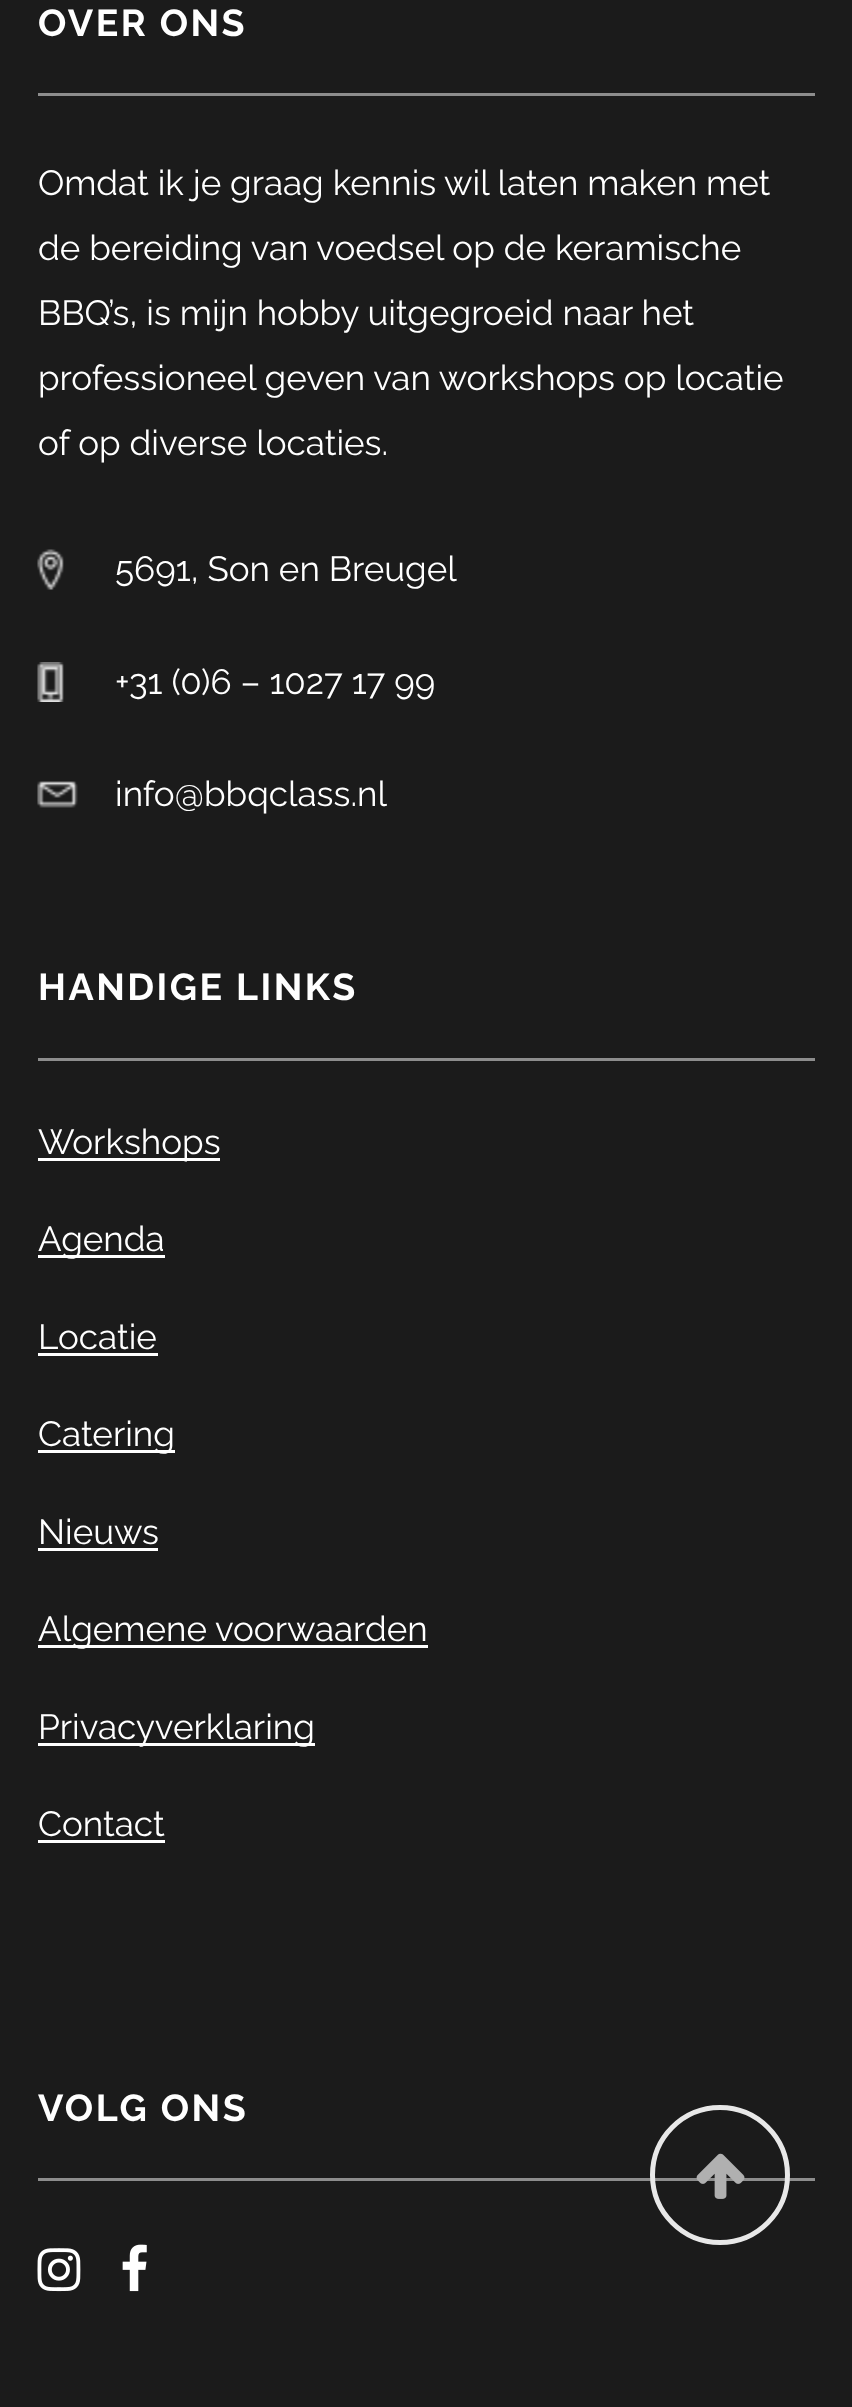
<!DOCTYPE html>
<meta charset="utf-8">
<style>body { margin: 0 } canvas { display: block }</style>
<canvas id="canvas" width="852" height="2407"></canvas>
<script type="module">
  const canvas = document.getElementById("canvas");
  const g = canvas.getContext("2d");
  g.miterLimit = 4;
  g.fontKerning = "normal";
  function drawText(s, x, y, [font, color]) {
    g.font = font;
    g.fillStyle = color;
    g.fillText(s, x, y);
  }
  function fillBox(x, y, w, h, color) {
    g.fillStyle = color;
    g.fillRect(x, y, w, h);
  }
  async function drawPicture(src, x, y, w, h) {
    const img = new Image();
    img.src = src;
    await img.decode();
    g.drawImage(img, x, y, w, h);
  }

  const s1 = ["bold 37.5px Raleway", "#FFFFFF"];
  const s2 = ["35px Raleway", "#FFFFFF"];

  fillBox(0, 0, 852, 2407, "#1B1B1B");
  fillBox(38, 93, 777, 3, "#8D8D8D");
  g.letterSpacing = "2.5px";
  drawText("OVER ONS", 38, 36, s1);
  g.letterSpacing = "0px";
  drawText("Omdat ik je graag kennis wil laten maken met", 38, 195, s2);
  drawText("de bereiding van voedsel op de keramische", 38, 260, s2);
  drawText("BBQ’s, is mijn hobby uitgegroeid naar het", 38, 325, s2);
  drawText("professioneel geven van workshops op locatie", 38, 390, s2);
  drawText("of op diverse locaties.", 38, 455, s2);
  await drawPicture("pic1.png", 37, 549, 27, 41);
  drawText("5691, Son en Breugel", 115, 581, s2);
  await drawPicture("pic2.png", 37, 662, 27, 40);
  drawText("+31 (0)6 – 1027 17 99", 115, 694, s2);
  await drawPicture("pic3.png", 37, 781, 41, 27);
  drawText("info@bbqclass.nl", 115, 806, s2);
  fillBox(38, 1058, 777, 3, "#8D8D8D");
  g.letterSpacing = "2.5px";
  drawText("HANDIGE LINKS", 38, 1000, s1);
  fillBox(38, 1158, 182, 3, "#FFFFFF");
  g.letterSpacing = "0px";
  drawText("Workshops", 38, 1154, s2);
  fillBox(38, 1255, 127, 3, "#FFFFFF");
  drawText("Agenda", 38, 1251, s2);
  drawText("Locatie", 38, 1349, s2);
  fillBox(38, 1353, 120, 3, "#FFFFFF");
  fillBox(38, 1450, 137, 3, "#FFFFFF");
  drawText("Catering", 38, 1446, s2);
  drawText("Nieuws", 38, 1544, s2);
  fillBox(38, 1548, 120, 3, "#FFFFFF");
  fillBox(38, 1645, 390, 3, "#FFFFFF");
  drawText("Algemene voorwaarden", 38, 1641, s2);
  fillBox(38, 1743, 277, 3, "#FFFFFF");
  drawText("Privacyverklaring", 38, 1739, s2);
  drawText("Contact", 38, 1836, s2);
  fillBox(38, 1840, 127, 3, "#FFFFFF");
  fillBox(38, 2178, 777, 3, "#8D8D8D");
  g.letterSpacing = "2.5px";
  drawText("VOLG ONS", 38, 2121, s1);
  await drawPicture("pic4.png", 37, 2248, 44, 44);
  await drawPicture("pic5.png", 122, 2244, 25, 48);
  g.beginPath();
  g.arc(720, 2175, 67.5, 0, Math.PI * 2);
  g.strokeStyle = "#E8E8E8";
  g.lineWidth = 5;
  g.stroke();
  await drawPicture("pic6.png", 696, 2153, 49, 46);
</script>
